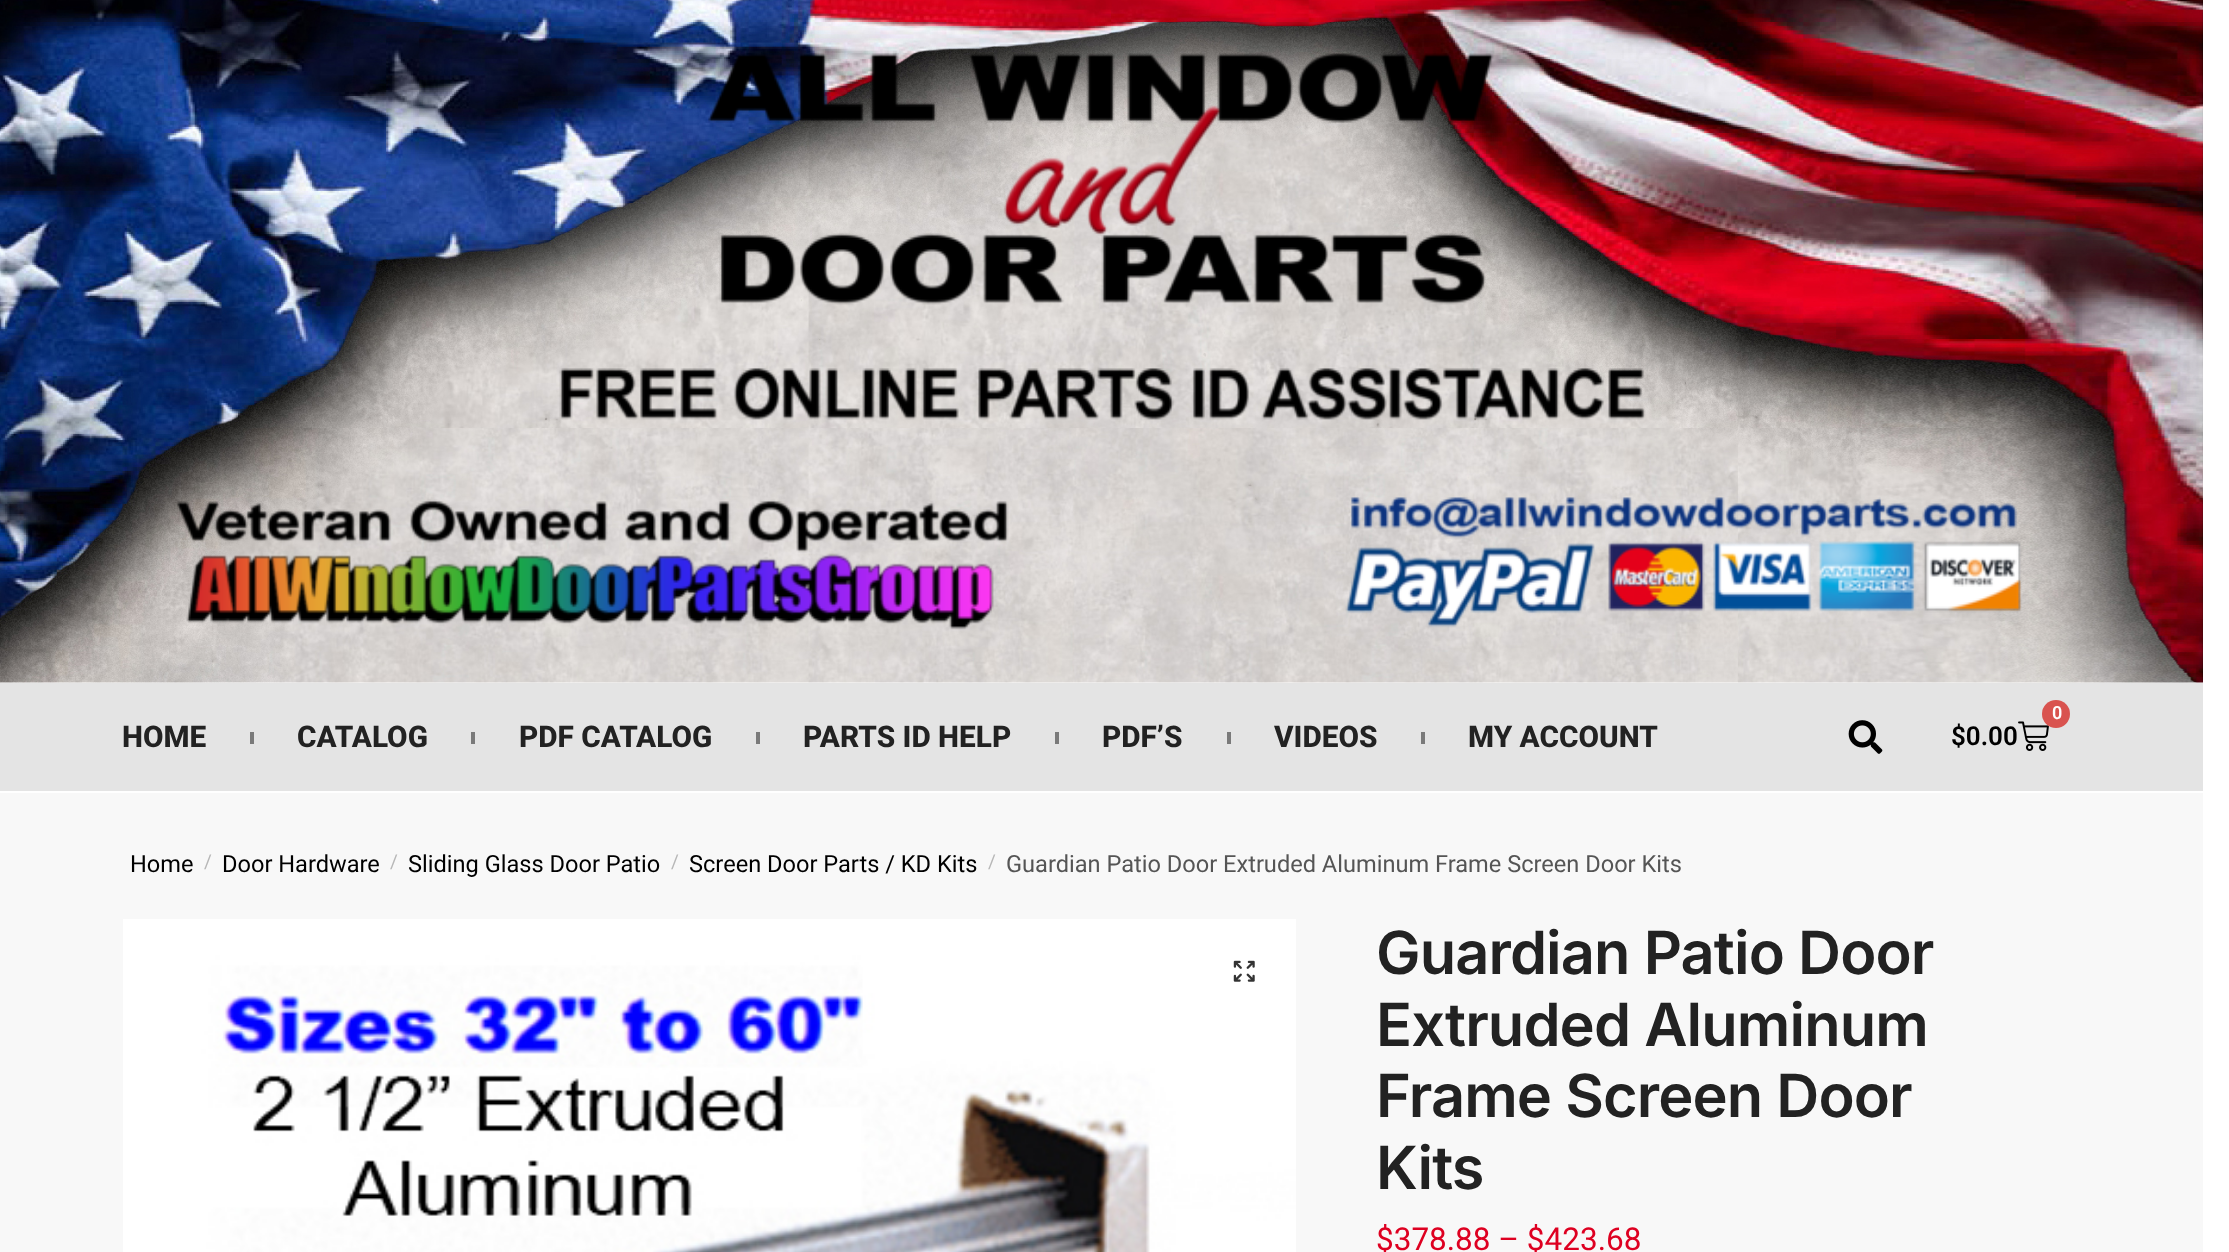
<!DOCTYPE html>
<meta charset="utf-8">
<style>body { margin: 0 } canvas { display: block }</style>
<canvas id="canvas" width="2229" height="1252"></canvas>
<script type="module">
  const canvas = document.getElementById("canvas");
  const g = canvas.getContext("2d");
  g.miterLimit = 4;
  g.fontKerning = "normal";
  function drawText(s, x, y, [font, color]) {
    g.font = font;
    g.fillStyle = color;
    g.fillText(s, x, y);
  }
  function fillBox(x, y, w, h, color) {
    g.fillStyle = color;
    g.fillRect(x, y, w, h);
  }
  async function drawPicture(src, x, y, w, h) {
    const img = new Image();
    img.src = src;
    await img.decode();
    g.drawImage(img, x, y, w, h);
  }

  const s1 = ["800 29.75px Roboto", "#222222"];
  const s2 = ["600 18px Roboto", "#FFFFFF"];
  const s3 = ["600 26px Roboto", "#000000"];
  const s4 = ["23.6px Roboto", "#000000"];
  const s5 = ["19px Roboto", "#B7B7B7"];
  const s6 = ["23.6px Roboto", "#555555"];
  const s7 = ["600 59.5px Inter", "#222222"];
  const s8 = ["31.5px Roboto", "#DE0021"];

  fillBox(0, 0, 2229, 1252, "#FFFFFF");
  await drawPicture("pic1.png", 0, 0, 2203, 683);
  await drawPicture("pic2.png", 176, 53, 1846, 577);
  fillBox(0, 683, 2203, 108, "#E4E4E4");
  drawText("HOME", 122, 747, s1);
  fillBox(250, 732, 4, 12, "#7A7A7A");
  drawText("CATALOG", 297, 747, s1);
  fillBox(471, 732, 4, 12, "#7A7A7A");
  drawText("PDF CATALOG", 519, 747, s1);
  fillBox(756, 732, 4, 12, "#7A7A7A");
  drawText("PARTS ID HELP", 803, 747, s1);
  fillBox(1055, 732, 4, 12, "#7A7A7A");
  drawText("PDF’S", 1102, 747, s1);
  fillBox(1227, 732, 4, 12, "#7A7A7A");
  drawText("VIDEOS", 1274, 747, s1);
  fillBox(1421, 732, 4, 12, "#7A7A7A");
  drawText("MY ACCOUNT", 1468, 747, s1);
  await drawPicture("pic3.png", 1848, 720, 35, 34);
  await drawPicture("pic4.png", 2018, 721, 31, 30);
  g.fillStyle = "#D9534F";
  g.beginPath();
  g.arc(2056, 714, 14, 0, Math.PI * 2);
  g.fill();
  drawText("0", 2052, 719, s2);
  drawText("$0.00", 1951, 745, s3);
  fillBox(0, 793, 2203, 459, "#F8F8F8");
  drawText("Home", 130, 872, s4);
  drawText("/", 204, 868, s5);
  drawText("Door Hardware", 222, 872, s4);
  drawText("/", 390, 868, s5);
  drawText("Sliding Glass Door Patio", 408, 872, s4);
  drawText("/", 671, 868, s5);
  drawText("Screen Door Parts / KD Kits", 689, 872, s4);
  drawText("/", 988, 868, s5);
  drawText("Guardian Patio Door Extruded Aluminum Frame Screen Door Kits", 1006, 872, s6);
  await drawPicture("pic5.png", 123, 919, 1173, 333);
  await drawPicture("pic6.png", 1233, 960, 22, 22);
  g.letterSpacing = "-0.9px";
  drawText("Guardian Patio Door", 1376, 974, s7);
  drawText("Extruded Aluminum", 1376, 1046, s7);
  drawText("Frame Screen Door", 1376, 1117, s7);
  drawText("Kits", 1376, 1189, s7);
  g.letterSpacing = "0px";
  drawText("$378.88 – $423.68", 1376, 1250, s8);
</script>
